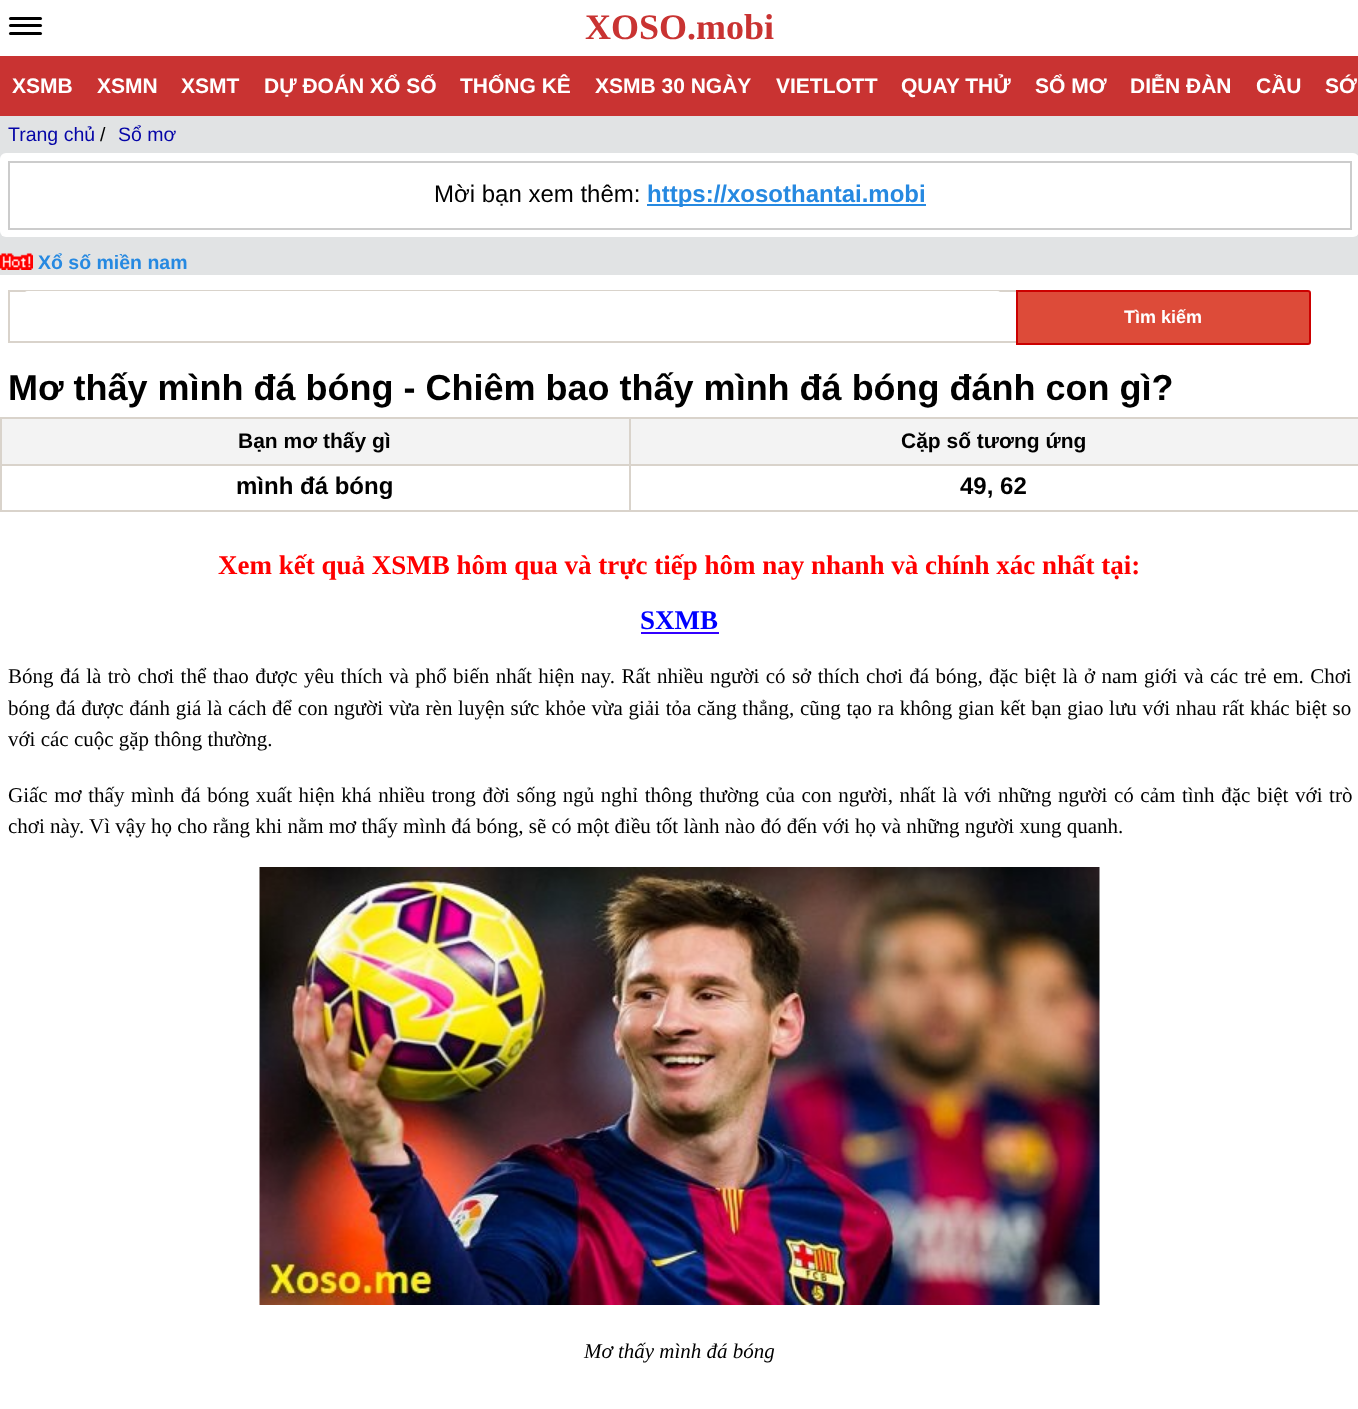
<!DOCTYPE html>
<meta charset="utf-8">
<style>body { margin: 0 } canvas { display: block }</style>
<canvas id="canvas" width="1358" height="1409"></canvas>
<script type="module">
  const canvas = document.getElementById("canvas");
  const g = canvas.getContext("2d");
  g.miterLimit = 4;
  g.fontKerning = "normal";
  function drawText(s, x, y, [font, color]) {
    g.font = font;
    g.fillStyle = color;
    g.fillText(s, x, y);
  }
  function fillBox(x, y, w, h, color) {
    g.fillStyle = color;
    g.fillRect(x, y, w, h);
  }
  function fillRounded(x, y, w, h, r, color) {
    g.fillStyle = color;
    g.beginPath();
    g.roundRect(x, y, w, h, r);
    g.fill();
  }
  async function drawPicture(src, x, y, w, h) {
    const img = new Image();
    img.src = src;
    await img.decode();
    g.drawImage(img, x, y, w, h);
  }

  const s1 = ["bold 36px Liberation Serif", "#C93332"];
  const s2 = ["bold 21px Liberation Sans", "#FFFFFF"];
  const s3 = ["19.5px Liberation Sans", "#0505A7"];
  const s4 = ["19.5px Liberation Sans", "#000000"];
  const s5 = ["24px Liberation Sans", "#000000"];
  const s6 = ["bold 24px Liberation Sans", "#2689E1"];
  const s7 = ["bold 19.5px Liberation Sans", "#2689E1"];
  const s8 = ["bold 18px Liberation Sans", "#FFFFFF"];
  const s9 = ["bold 36px Liberation Sans", "#000000"];
  const s10 = ["bold 21px Liberation Sans", "#000000"];
  const s11 = ["bold 24px Liberation Sans", "#000000"];
  const s12 = ["bold 27px Liberation Serif", "#FF0000"];
  const s13 = ["bold 27px Liberation Serif", "#0000FF"];
  const s14 = ["21px Liberation Serif", "#000000"];
  const s15 = ["italic 21px Liberation Serif", "#000000"];

  fillBox(0, 0, 1358, 1409, "#E1E3E4");
  fillBox(0, 0, 1358, 56, "#FFFFFF");
  fillRounded(9, 17, 33, 3, 1.5, "#000000");
  fillRounded(9, 24, 33, 3, 1.5, "#000000");
  fillRounded(9, 32, 33, 3, 1.5, "#000000");
  drawText("XOSO.mobi", 585, 39, s1);
  fillBox(0, 56, 1358, 60, "#C93332");
  drawText("XSMB", 12, 93, s2);
  drawText("XSMN", 97, 93, s2);
  drawText("XSMT", 181, 93, s2);
  drawText("DỰ ĐOÁN XỔ SỐ", 264, 93, s2);
  drawText("THỐNG KÊ", 460, 93, s2);
  drawText("XSMB 30 NGÀY", 595, 93, s2);
  drawText("VIETLOTT", 776, 93, s2);
  drawText("QUAY THỬ", 901, 93, s2);
  drawText("SỔ MƠ", 1035, 93, s2);
  drawText("DIỄN ĐÀN", 1130, 93, s2);
  drawText("CẦU", 1256, 93, s2);
  drawText("SỚ", 1325, 93, s2);
  drawText("Trang chủ", 8, 141, s3);
  drawText("/", 100, 141, s4);
  drawText("Sổ mơ", 118, 141, s3);
  fillRounded(0, 153, 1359, 84, 6, "#FFFFFF");
  g.strokeStyle = "#CCCCCC";
  g.lineWidth = 2;
  g.strokeRect(9, 162, 1342, 67);
  drawText("Mời bạn xem thêm:", 434, 202, s5);
  fillBox(647, 204, 279, 2, "#2689E1");
  drawText("https://xosothantai.mobi", 647, 202, s6);
  await drawPicture("pic1.png", 0, 253, 33, 17);
  drawText("Xổ số miền nam", 38, 269, s7);
  fillBox(0, 275, 1358, 1134, "#FFFFFF");
  fillBox(8, 290, 1008, 2, "#D9D3CB");
  fillBox(8, 341, 1008, 2, "#D9D3CB");
  fillBox(8, 290, 2, 52, "#D9D3CB");
  fillRounded(23, 291, 979, 41, 5, "#FFFFFF");
  g.fillStyle = "#DD4B39";
  g.beginPath();
  g.roundRect(1017, 291, 293, 53, [0, 2, 2, 0]);
  g.fill();
  g.strokeStyle = "#CC0000";
  g.stroke();
  drawText("Tìm kiếm", 1124, 323, s8);
  drawText("Mơ thấy mình đá bóng - Chiêm bao thấy mình đá bóng đánh con gì?", 8, 400, s9);
  fillBox(2, 419, 627, 45, "#F3F3F3");
  fillBox(629, 417, 729, 2, "#D9D3CB");
  fillBox(629, 464, 729, 2, "#D9D3CB");
  fillBox(629, 510, 729, 2, "#D9D3CB");
  fillBox(629, 464, 2, 48, "#D9D3CB");
  fillBox(0, 464, 630, 2, "#D9D3CB");
  fillBox(629, 417, 2, 48, "#D9D3CB");
  fillBox(0, 417, 630, 2, "#D9D3CB");
  fillBox(0, 510, 630, 2, "#D9D3CB");
  fillBox(0, 464, 2, 48, "#D9D3CB");
  fillBox(0, 417, 2, 48, "#D9D3CB");
  drawText("Bạn mơ thấy gì", 238, 448, s10);
  fillBox(631, 419, 727, 45, "#F3F3F3");
  drawText("Cặp số tương ứng", 901, 448, s10);
  drawText("mình đá bóng", 236, 494, s11);
  drawText("49, 62", 960, 494, s11);
  drawText("Xem kết quả XSMB hôm qua và trực tiếp hôm nay nhanh và chính xác nhất tại:", 218, 574, s12);
  drawText("SXMB", 640, 629, s13);
  fillBox(641, 632, 78, 2, "#3300FF");
  g.wordSpacing = "1.15px";
  drawText("Bóng đá là trò chơi thể thao được yêu thích và phổ biến nhất hiện nay. Rất nhiều người có sở thích chơi đá bóng, đặc biệt là ở nam giới và các trẻ em. Chơi", 8, 683, s14);
  g.wordSpacing = "0.45px";
  drawText("bóng đá được đánh giá là cách để con người vừa rèn luyện sức khỏe vừa giải tỏa căng thẳng, cũng tạo ra không gian kết bạn giao lưu với nhau rất khác biệt so", 8, 715, s14);
  g.wordSpacing = "0px";
  drawText("với các cuộc gặp thông thường.", 8, 746, s14);
  g.wordSpacing = "1.35px";
  drawText("Giấc mơ thấy mình đá bóng xuất hiện khá nhiều trong đời sống ngủ nghỉ thông thường của con người, nhất là với những người có cảm tình đặc biệt với trò", 8, 802, s14);
  g.wordSpacing = "0px";
  drawText("chơi này. Vì vậy họ cho rằng khi nằm mơ thấy mình đá bóng, sẽ có một điều tốt lành nào đó đến với họ và những người xung quanh.", 8, 833, s14);
  await drawPicture("pic2.png", 259, 867, 841, 438);
  drawText("Mơ thấy mình đá bóng", 584, 1358, s15);
</script>
